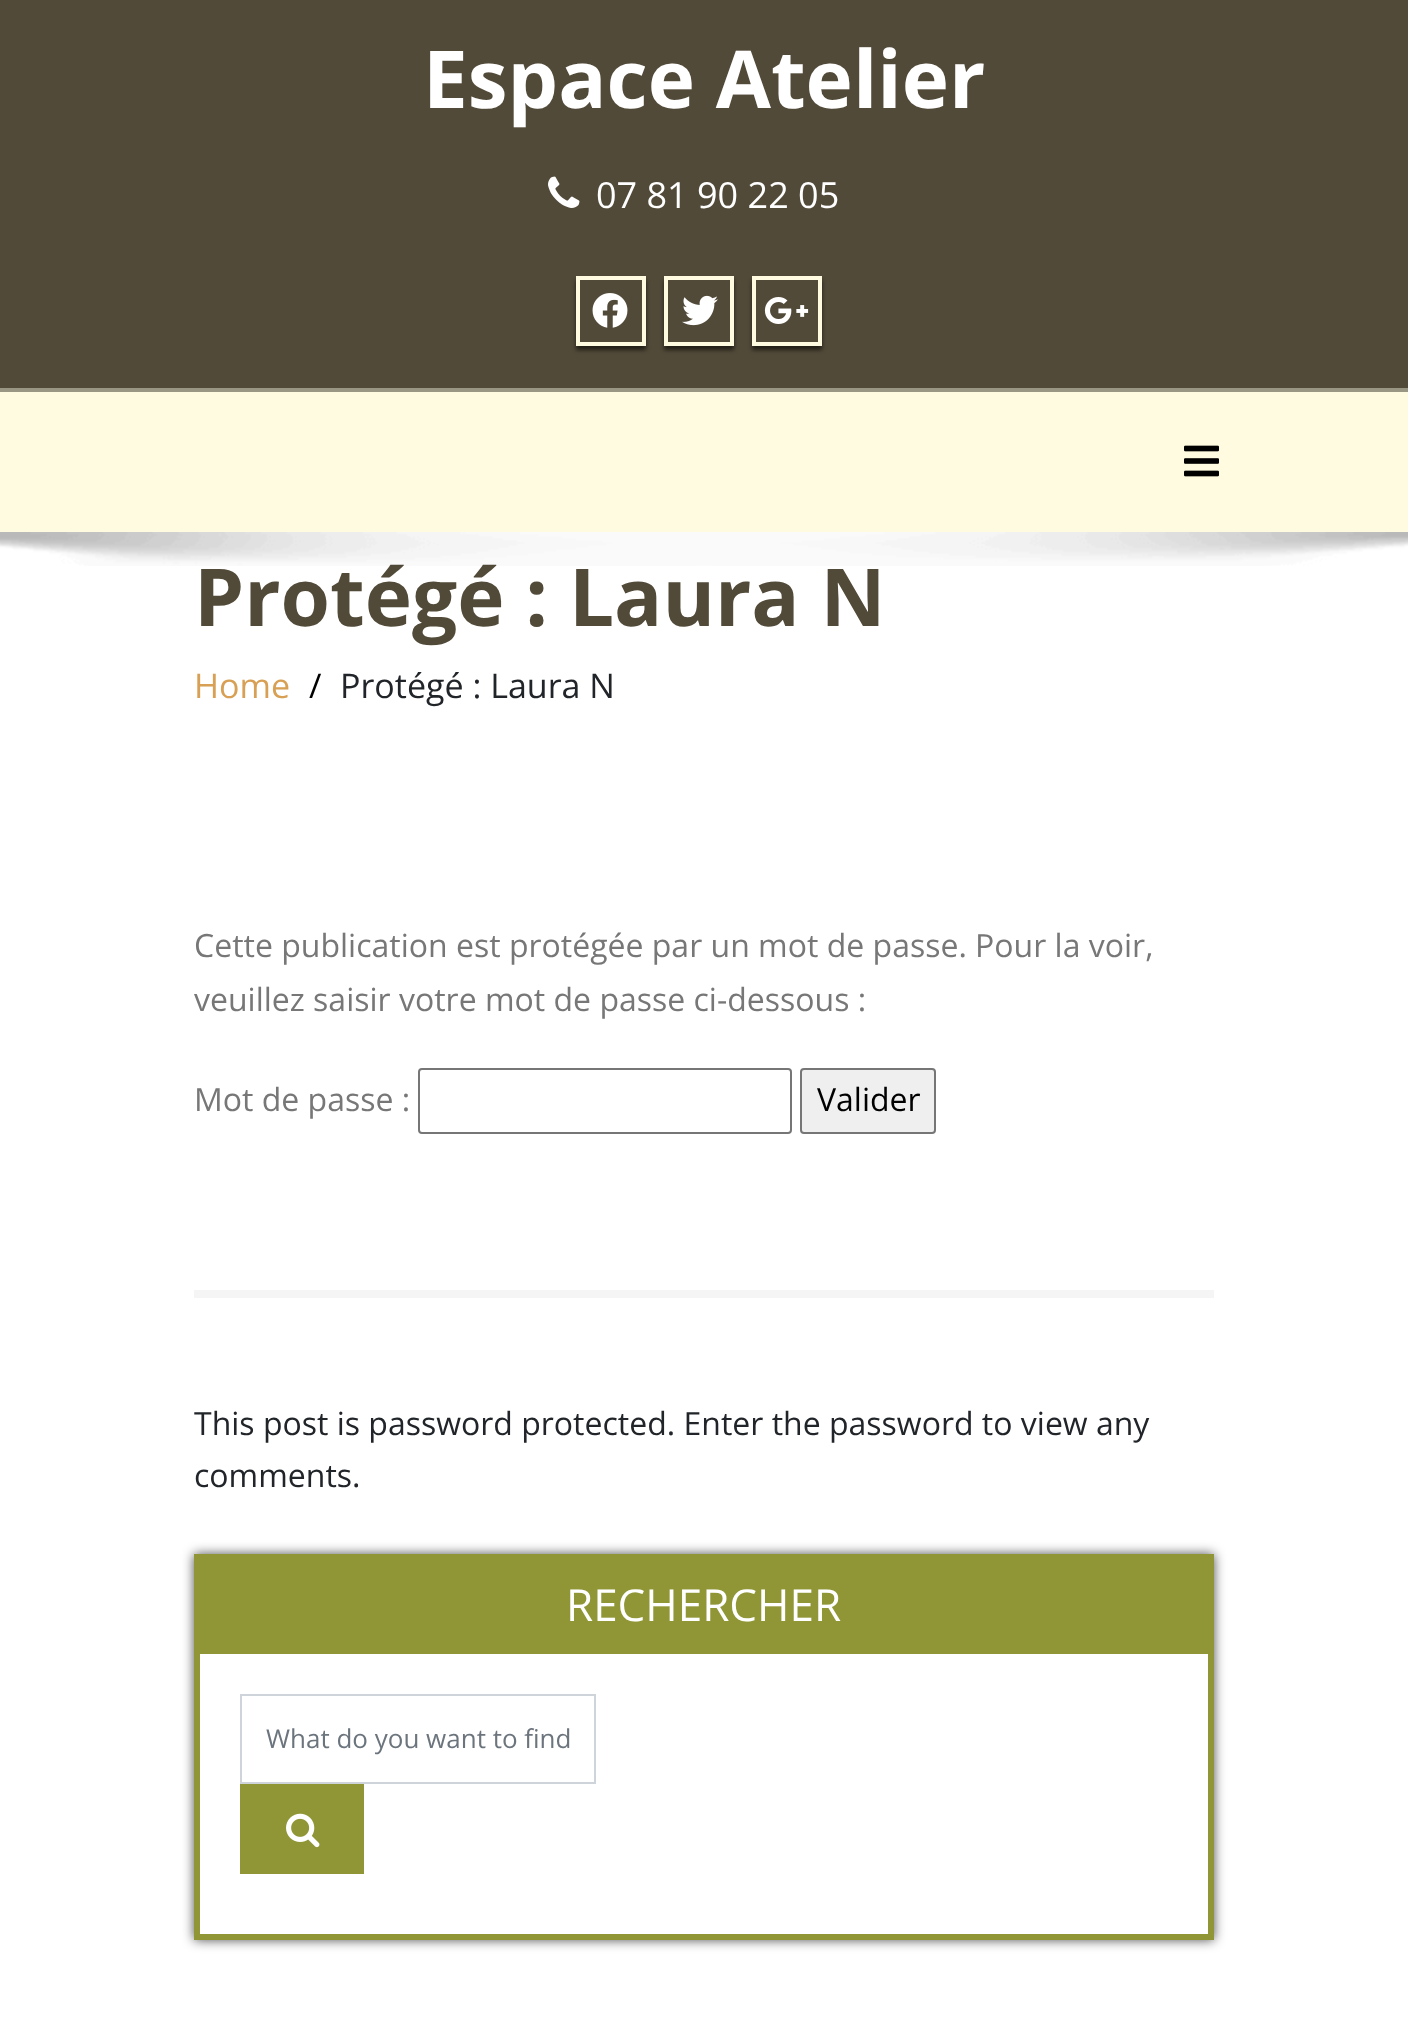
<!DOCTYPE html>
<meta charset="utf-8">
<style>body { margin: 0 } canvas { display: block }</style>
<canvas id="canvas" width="1408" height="2029"></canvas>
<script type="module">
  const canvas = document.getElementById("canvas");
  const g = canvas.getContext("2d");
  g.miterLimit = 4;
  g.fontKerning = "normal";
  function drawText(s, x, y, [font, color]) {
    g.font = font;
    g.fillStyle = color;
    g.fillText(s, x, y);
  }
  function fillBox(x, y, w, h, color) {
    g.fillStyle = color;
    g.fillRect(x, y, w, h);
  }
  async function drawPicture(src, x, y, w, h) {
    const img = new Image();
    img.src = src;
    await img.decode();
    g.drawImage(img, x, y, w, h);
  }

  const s1 = ["bold 80px Open Sans", "#FFFFFF"];
  const s2 = ["36px Open Sans", "#FFFFFF"];
  const s3 = ["bold 80px Open Sans", "#524A39"];
  const s4 = ["34px Open Sans", "#D8A054"];
  const s5 = ["34px Open Sans", "#000000"];
  const s6 = ["34px Open Sans", "#212529"];
  const s7 = ["32px Open Sans", "#777777"];
  const s8 = ["32px Open Sans", "#000000"];
  const s9 = ["32px Open Sans", "#212529"];
  const s10 = ["44px Open Sans", "#FFFFFF"];
  const s11 = ["26px Open Sans", "#6C757D"];

  fillBox(0, 0, 1408, 2029, "#FFFFFF");
  fillBox(0, 0, 1408, 388, "#524A39");
  drawText("Espace Atelier", 423, 108, s1);
  await drawPicture("pic1.png", 548, 176, 32, 32);
  drawText("07 81 90 22 05", 596, 208, s2);
  g.save();
  g.beginPath();
  g.moveTo(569, 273);
  g.lineTo(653, 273);
  g.lineTo(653, 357);
  g.lineTo(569, 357);
  g.closePath();
  g.moveTo(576, 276);
  g.lineTo(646, 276);
  g.lineTo(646, 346);
  g.lineTo(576, 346);
  g.closePath();
  g.clip("evenodd");
  g.fillStyle = "rgba(0, 0, 0, 0.6)";
  g.filter = "blur(2px)";
  g.beginPath();
  g.rect(576, 280, 70, 70);
  g.fill();
  g.filter = "none";
  g.restore();
  g.strokeStyle = "#FFFBE0";
  g.lineWidth = 4;
  g.strokeRect(578, 278, 66, 66);
  await drawPicture("pic2.png", 592, 293, 36, 35);
  g.save();
  g.beginPath();
  g.moveTo(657, 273);
  g.lineTo(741, 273);
  g.lineTo(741, 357);
  g.lineTo(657, 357);
  g.closePath();
  g.moveTo(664, 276);
  g.lineTo(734, 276);
  g.lineTo(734, 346);
  g.lineTo(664, 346);
  g.closePath();
  g.clip("evenodd");
  g.fillStyle = "rgba(0, 0, 0, 0.6)";
  g.filter = "blur(2px)";
  g.beginPath();
  g.rect(664, 280, 70, 70);
  g.fill();
  g.filter = "none";
  g.restore();
  g.strokeRect(666, 278, 66, 66);
  await drawPicture("pic3.png", 682, 295, 36, 31);
  g.save();
  g.beginPath();
  g.moveTo(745, 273);
  g.lineTo(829, 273);
  g.lineTo(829, 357);
  g.lineTo(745, 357);
  g.closePath();
  g.moveTo(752, 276);
  g.lineTo(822, 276);
  g.lineTo(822, 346);
  g.lineTo(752, 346);
  g.closePath();
  g.clip("evenodd");
  g.fillStyle = "rgba(0, 0, 0, 0.6)";
  g.filter = "blur(2px)";
  g.beginPath();
  g.rect(752, 280, 70, 70);
  g.fill();
  g.filter = "none";
  g.restore();
  g.strokeRect(754, 278, 66, 66);
  await drawPicture("pic4.png", 764, 297, 45, 27);
  fillBox(0, 392, 1408, 140, "#FFFBE0");
  fillBox(0, 388, 1408, 4, "#999684");
  await drawPicture("pic5.png", 1184, 445, 35, 32);
  drawText("Protégé : Laura N", 194, 626, s3);
  await drawPicture("pic6.png", 0, 532, 1408, 34);
  drawText("Home", 194, 698, s4);
  drawText("/", 309, 698, s5);
  drawText("Protégé : Laura N", 340, 698, s6);
  drawText("Cette publication est protégée par un mot de passe. Pour la voir,", 194, 957, s7);
  drawText("veuillez saisir votre mot de passe ci-dessous :", 194, 1011, s7);
  drawText("Mot de passe :", 194, 1111, s7);
  g.beginPath();
  g.roundRect(419, 1069, 372, 64, 3);
  g.strokeStyle = "#767676";
  g.lineWidth = 2;
  g.stroke();
  g.fillStyle = "#EFEFEF";
  g.beginPath();
  g.roundRect(801, 1069, 134, 64, 3);
  g.fill();
  g.stroke();
  drawText("Valider", 817, 1111, s8);
  fillBox(194, 1290, 1020, 8, "#F5F5F5");
  drawText("This post is password protected. Enter the password to view any", 194, 1435, s9);
  drawText("comments.", 194, 1487, s9);
  g.save();
  g.beginPath();
  g.moveTo(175, 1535);
  g.lineTo(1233, 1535);
  g.lineTo(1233, 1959);
  g.lineTo(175, 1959);
  g.closePath();
  g.moveTo(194, 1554);
  g.lineTo(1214, 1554);
  g.lineTo(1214, 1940);
  g.lineTo(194, 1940);
  g.closePath();
  g.clip("evenodd");
  g.fillStyle = "rgba(0, 0, 0, 0.7)";
  g.filter = "blur(6px)";
  g.beginPath();
  g.rect(194, 1554, 1020, 386);
  g.fill();
  g.filter = "none";
  g.restore();
  fillBox(1208, 1554, 6, 386, "#909536");
  fillBox(194, 1934, 1020, 6, "#909536");
  fillBox(194, 1554, 6, 386, "#909536");
  fillBox(200, 1554, 1008, 100, "#909536");
  drawText("RECHERCHER", 566, 1621, s10);
  g.strokeStyle = "#CED4DA";
  g.strokeRect(241, 1695, 354, 88);
  drawText("What do you want to find", 266, 1748, s11);
  fillBox(240, 1784, 124, 90, "#909536");
  await drawPicture("pic7.png", 286, 1813, 34, 35);
</script>
